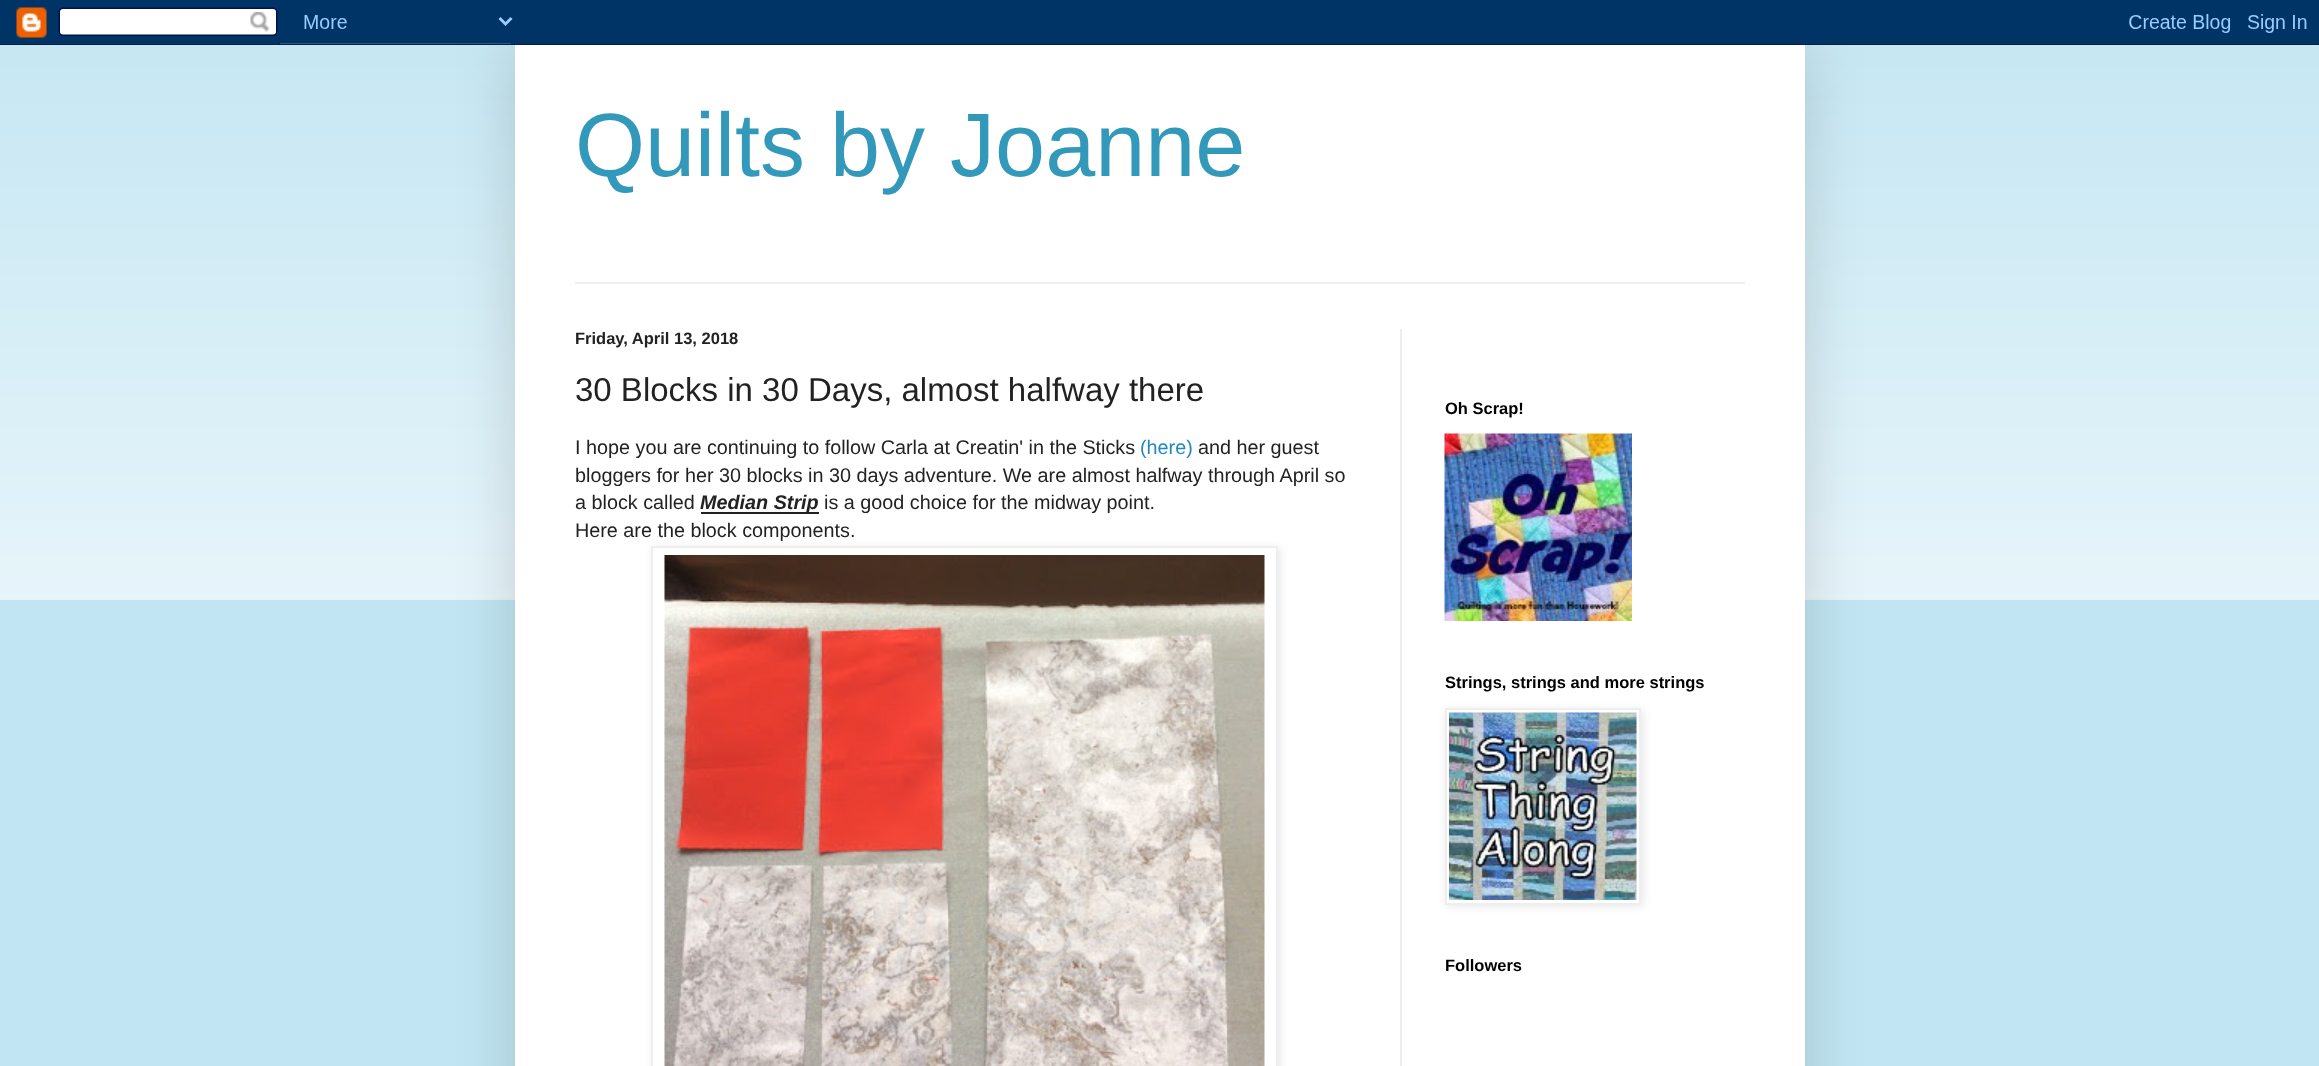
<!DOCTYPE html>
<meta charset="utf-8">
<style>body { margin: 0 } canvas { display: block }</style>
<canvas id="canvas" width="2319" height="1066"></canvas>
<script type="module">
  const canvas = document.getElementById("canvas");
  const g = canvas.getContext("2d");
  g.miterLimit = 4;
  g.fontKerning = "normal";
  function drawText(s, x, y, [font, color]) {
    g.font = font;
    g.fillStyle = color;
    g.fillText(s, x, y);
  }
  function fillBox(x, y, w, h, color) {
    g.fillStyle = color;
    g.fillRect(x, y, w, h);
  }
  async function drawPicture(src, x, y, w, h) {
    const img = new Image();
    img.src = src;
    await img.decode();
    g.drawImage(img, x, y, w, h);
  }

  const s1 = ["90px Liberation Sans", "#3399BB"];
  const s2 = ["bold 16.5px Liberation Sans", "#222222"];
  const s3 = ["33px Liberation Sans", "#222222"];
  const s4 = ["19.8px Liberation Sans", "#222222"];
  const s5 = ["19.8px Liberation Sans", "#2288BB"];
  const s6 = ["italic bold 19.8px Liberation Sans", "#222222"];
  const s7 = ["bold 16.5px Liberation Sans", "#000000"];

  fillBox(0, 0, 2319, 1066, "#C1E5F2");
  await drawPicture("pic2.png", 0, 43, 2319, 557);
  g.fillStyle = "rgba(0, 0, 0, 0.15)";
  g.filter = "blur(30px)";
  g.beginPath();
  g.rect(515, 45, 1290, 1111);
  g.fill();
  g.filter = "none";
  await drawPicture("pic1.png", 0, 0, 2319, 45);
  fillBox(515, 45, 1290, 1021, "#FFFFFF");
  drawText("Quilts by Joanne", 575, 176, s1);
  fillBox(575, 282, 1170, 2, "#EEEEEE");
  fillBox(1400, 329, 2, 737, "#EEEEEE");
  drawText("Friday, April 13, 2018", 575, 344, s2);
  drawText("30 Blocks in 30 Days, almost halfway there", 575, 401, s3);
  drawText("I hope you are continuing to follow Carla at Creatin' in the Sticks", 575, 454, s4);
  drawText("(here)", 1140, 454, s5);
  drawText("and her guest", 1198, 454, s4);
  drawText("bloggers for her 30 blocks in 30 days adventure. We are almost halfway through April so", 575, 482, s4);
  drawText("a block called", 575, 509, s4);
  fillBox(701, 512, 118, 2, "#222222");
  drawText("Median Strip", 700, 509, s6);
  drawText("is a good choice for the midway point.", 824, 509, s4);
  drawText("Here are the block components.", 575, 537, s4);
  g.save();
  g.beginPath();
  g.moveTo(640, 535);
  g.lineTo(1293, 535);
  g.lineTo(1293, 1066);
  g.lineTo(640, 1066);
  g.closePath();
  g.moveTo(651, 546);
  g.lineTo(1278, 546);
  g.lineTo(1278, 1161);
  g.lineTo(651, 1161);
  g.closePath();
  g.clip("evenodd");
  g.fillStyle = "rgba(0, 0, 0, 0.1)";
  g.filter = "blur(4px)";
  g.beginPath();
  g.rect(653, 548, 627, 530);
  g.fill();
  g.filter = "none";
  g.restore();
  g.strokeStyle = "#EEEEEE";
  g.lineWidth = 2;
  g.strokeRect(652, 547, 625, 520);
  await drawPicture("pic3.png", 664, 555, 601, 511);
  drawText("Oh Scrap!", 1445, 414, s7);
  await drawPicture("pic4.png", 1444, 433, 188, 188);
  drawText("Strings, strings and more strings", 1445, 688, s7);
  g.fillStyle = "rgba(0, 0, 0, 0.1)";
  g.filter = "blur(4px)";
  g.beginPath();
  g.rect(1446, 710, 197, 196);
  g.fill();
  g.filter = "none";
  g.fillStyle = "#FFFFFF";
  g.beginPath();
  g.rect(1446, 709, 194, 195);
  g.fill();
  g.stroke();
  await drawPicture("pic5.png", 1449, 712, 188, 188);
  drawText("Followers", 1445, 971, s7);
</script>
